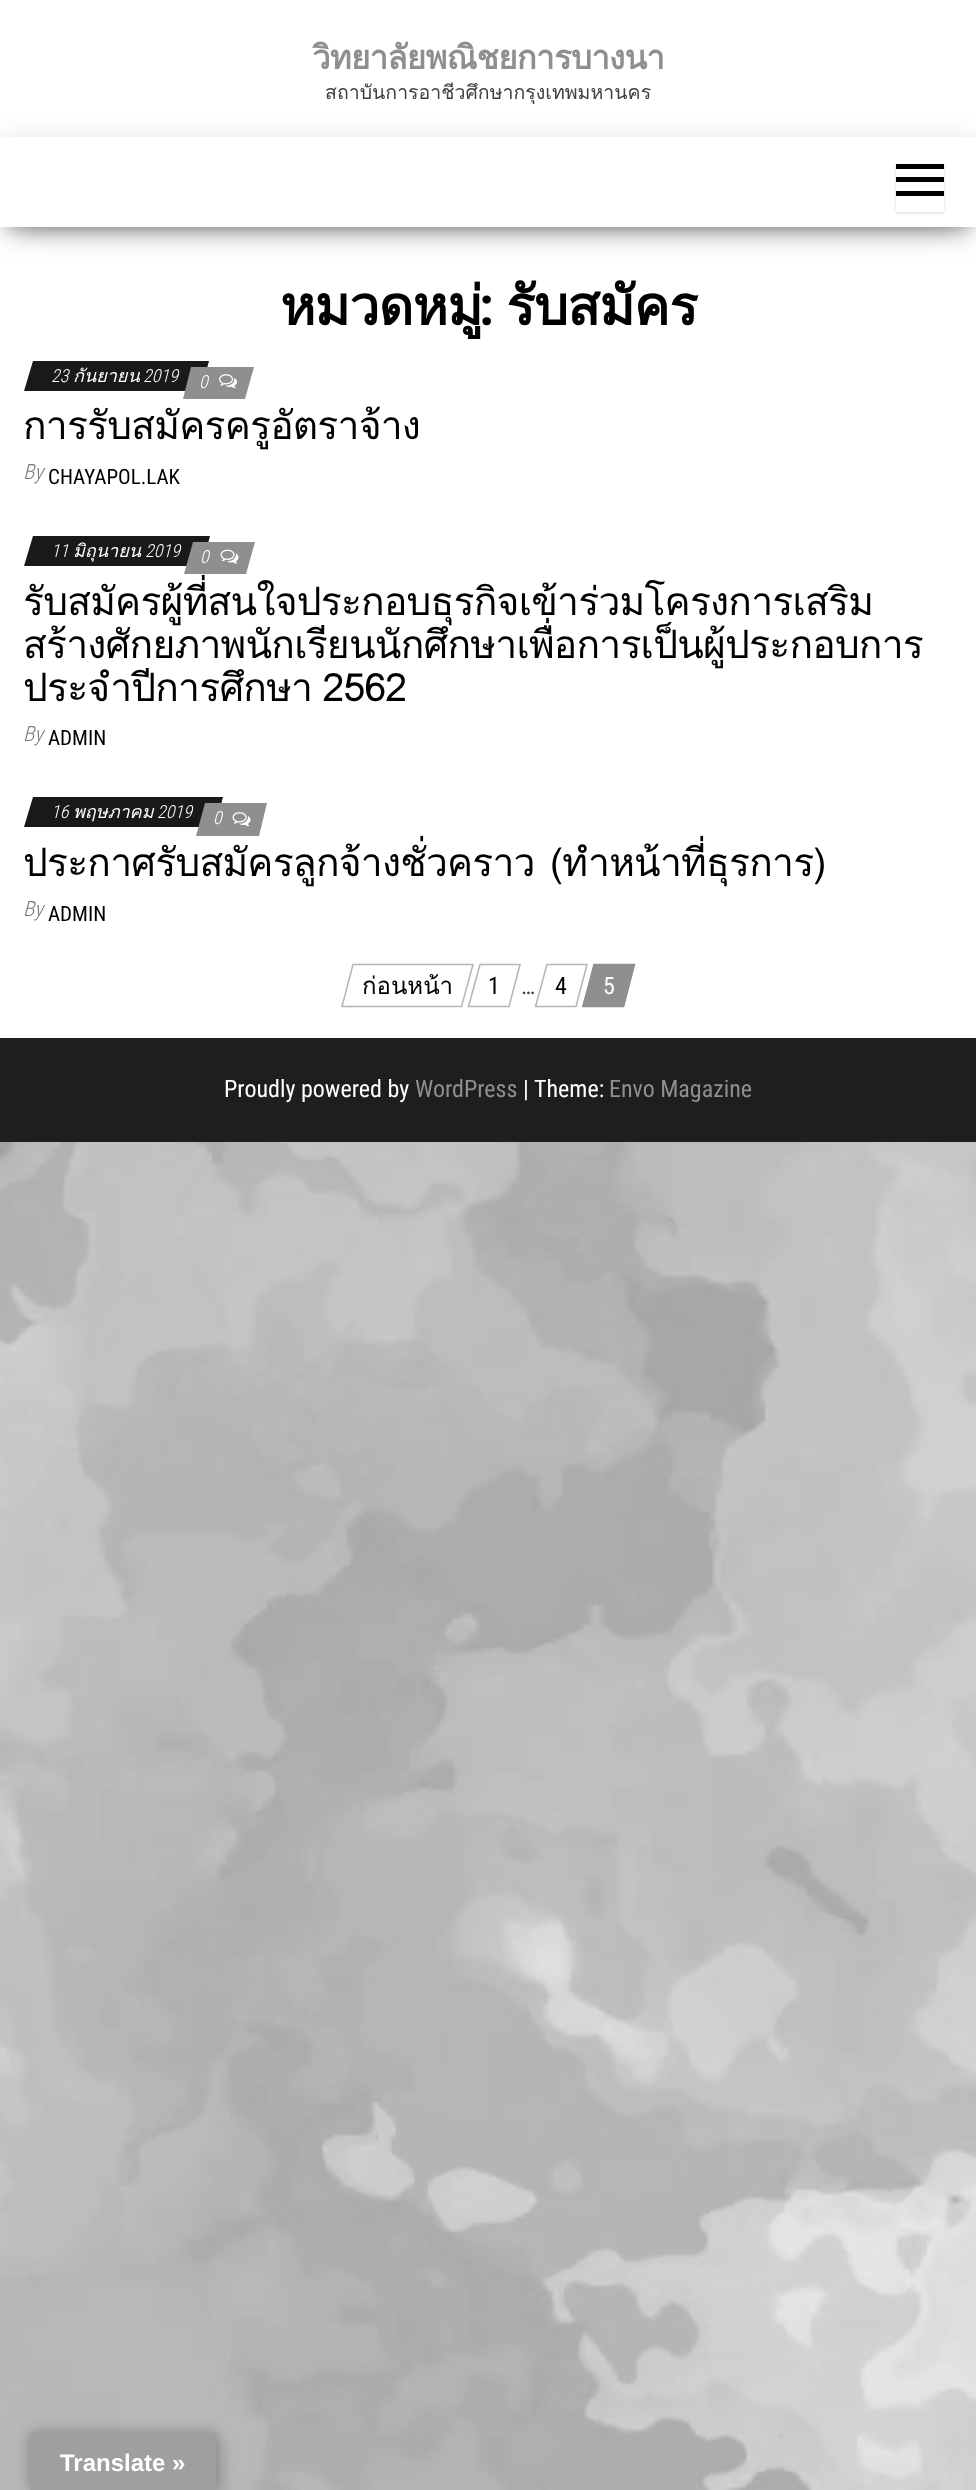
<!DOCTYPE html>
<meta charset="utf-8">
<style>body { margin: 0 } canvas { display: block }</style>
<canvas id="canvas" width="976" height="2490"></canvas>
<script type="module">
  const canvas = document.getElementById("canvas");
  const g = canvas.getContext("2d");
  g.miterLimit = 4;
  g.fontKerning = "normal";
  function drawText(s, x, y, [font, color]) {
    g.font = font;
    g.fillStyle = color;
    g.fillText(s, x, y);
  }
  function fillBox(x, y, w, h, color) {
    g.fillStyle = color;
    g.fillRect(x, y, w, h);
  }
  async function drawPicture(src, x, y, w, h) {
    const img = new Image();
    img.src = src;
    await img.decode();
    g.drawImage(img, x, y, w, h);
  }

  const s1 = ["bold 33px Loma", "#8F8F8F"];
  const s2 = ["19.5px Loma", "#404040"];
  const s3 = ["bold 54px Loma", "#000000"];
  const s4 = ["bold 54px Roboto Condensed", "#000000"];
  const s5 = ["italic 300 18px Roboto Condensed", "#FFFFFF"];
  const s6 = ["italic 18px Loma", "#FFFFFF"];
  const s7 = ["39px Loma", "#000000"];
  const s8 = ["italic 300 21px Roboto Condensed", "#797979"];
  const s9 = ["21px Roboto Condensed", "#000000"];
  const s10 = ["24px Loma", "#000000"];
  const s11 = ["24px Roboto Condensed", "#000000"];
  const s12 = ["24px Roboto Condensed", "#404040"];
  const s13 = ["24px Roboto Condensed", "#FFFFFF"];
  const s14 = ["24px Roboto Condensed", "#8F8F8F"];
  const s15 = ["bold 24px Liberation Sans", "#FFFFFF"];

  fillBox(0, 0, 976, 2490, "#FFFFFF");
  await drawPicture("pic1.png", 0, 1142, 976, 1348);
  g.letterSpacing = "-0.7px";
  drawText("วิทยาลัยพณิชยการบางนา", 312, 69, s1);
  g.fillStyle = "rgba(0, 0, 0, 0.12)";
  g.filter = "blur(15px)";
  g.beginPath();
  g.rect(0, 141, 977, 90);
  g.fill();
  g.filter = "none";
  g.letterSpacing = "0px";
  drawText("สถาบันการอาชีวศึกษากรุงเทพมหานคร", 325, 99, s2);
  g.fillStyle = "rgba(0, 0, 0, 0.2)";
  g.filter = "blur(7.5px)";
  g.beginPath();
  g.rect(8, 156, 961, 75);
  g.fill();
  g.filter = "none";
  g.fillStyle = "rgba(0, 0, 0, 0.42)";
  g.filter = "blur(15px)";
  g.beginPath();
  g.rect(18, 170, 941, 54);
  g.fill();
  g.filter = "none";
  fillBox(0, 137, 976, 90, "#FFFFFF");
  g.save();
  g.beginPath();
  g.moveTo(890, 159);
  g.lineTo(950, 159);
  g.lineTo(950, 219);
  g.lineTo(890, 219);
  g.closePath();
  g.moveTo(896, 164);
  g.lineTo(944, 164);
  g.lineTo(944, 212);
  g.lineTo(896, 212);
  g.closePath();
  g.clip("evenodd");
  g.fillStyle = "rgba(0, 0, 0, 0.15)";
  g.filter = "blur(1.5px)";
  g.beginPath();
  g.rect(896, 165, 48, 48);
  g.fill();
  g.filter = "none";
  g.restore();
  fillBox(896, 164, 48, 5, "#000000");
  fillBox(896, 177, 48, 5, "#000000");
  fillBox(896, 191, 48, 5, "#000000");
  g.letterSpacing = "-1px";
  drawText("หมวดหมู่", 280, 325, s3);
  drawText(":", 479, 325, s4);
  drawText("รับสมัคร", 506, 325, s3);
  g.fillStyle = "#191919";
  g.beginPath();
  g.moveTo(33, 361);
  g.lineTo(209, 361);
  g.lineTo(201, 391);
  g.lineTo(24, 391);
  g.closePath();
  g.fill();
  g.letterSpacing = "0px";
  drawText("23", 51, 382, s5);
  drawText("กันยายน", 73, 382, s6);
  drawText("2019", 143, 382, s5);
  g.fillStyle = "#8F8F8F";
  g.beginPath();
  g.moveTo(191, 367);
  g.lineTo(254, 367);
  g.lineTo(245, 399);
  g.lineTo(183, 399);
  g.closePath();
  g.fill();
  drawText("0", 199, 388, s5);
  await drawPicture("pic2.png", 219, 374, 18, 15);
  g.letterSpacing = "-0.78px";
  drawText("การรับสมัครครูอัตราจ้าง", 23, 439, s7);
  g.letterSpacing = "0px";
  drawText("By", 23, 479, s8);
  drawText("CHAYAPOL.LAK", 48, 484, s9);
  g.fillStyle = "#191919";
  g.beginPath();
  g.moveTo(33, 536);
  g.lineTo(210, 536);
  g.lineTo(202, 566);
  g.lineTo(24, 566);
  g.closePath();
  g.fill();
  drawText("11", 51, 557, s5);
  drawText("มิถุนายน", 73, 557, s6);
  drawText("2019", 145, 557, s5);
  g.fillStyle = "#8F8F8F";
  g.beginPath();
  g.moveTo(193, 542);
  g.lineTo(255, 542);
  g.lineTo(246, 574);
  g.lineTo(184, 574);
  g.closePath();
  g.fill();
  drawText("0", 200, 563, s5);
  await drawPicture("pic3.png", 220, 549, 19, 15);
  g.letterSpacing = "-0.78px";
  drawText("รับสมัครผู้ที่สนใจประกอบธุรกิจเข้าร่วมโครงการเสริม", 23, 615, s7);
  drawText("สร้างศักยภาพนักเรียนนักศึกษาเพื่อการเป็นผู้ประกอบการ", 23, 658, s7);
  g.wordSpacing = "-2px";
  drawText("ประจำปีการศึกษา 2562", 23, 701, s7);
  g.letterSpacing = "0px";
  g.wordSpacing = "0px";
  drawText("By", 23, 741, s8);
  drawText("ADMIN", 48, 745, s9);
  g.fillStyle = "#191919";
  g.beginPath();
  g.moveTo(33, 797);
  g.lineTo(223, 797);
  g.lineTo(215, 827);
  g.lineTo(24, 827);
  g.closePath();
  g.fill();
  drawText("16", 51, 818, s5);
  drawText("พฤษภาคม", 73, 818, s6);
  drawText("2019", 157, 818, s5);
  g.letterSpacing = "-0.78px";
  g.wordSpacing = "3px";
  drawText("ประกาศรับสมัครลูกจ้างชั่วคราว (ทำหน้าที่ธุรการ)", 23, 876, s7);
  g.fillStyle = "#8F8F8F";
  g.beginPath();
  g.moveTo(205, 803);
  g.lineTo(267, 803);
  g.lineTo(259, 836);
  g.lineTo(196, 836);
  g.closePath();
  g.fill();
  g.letterSpacing = "0px";
  g.wordSpacing = "0px";
  drawText("0", 213, 824, s5);
  await drawPicture("pic4.png", 232, 812, 19, 15);
  drawText("By", 23, 916, s8);
  drawText("ADMIN", 48, 921, s9);
  g.beginPath();
  g.moveTo(353, 964.5);
  g.lineTo(473, 964.5);
  g.lineTo(461.5, 1006.5);
  g.lineTo(342, 1006.5);
  g.closePath();
  g.strokeStyle = "#B5B5B5";
  g.lineWidth = 1.5;
  g.stroke();
  drawText("ก่อนหน้า", 362, 994, s10);
  g.beginPath();
  g.moveTo(480, 964.5);
  g.lineTo(520, 964.5);
  g.lineTo(509, 1006.5);
  g.lineTo(468.5, 1006.5);
  g.closePath();
  g.stroke();
  drawText("1", 488, 994, s11);
  drawText("…", 521, 994, s12);
  g.beginPath();
  g.moveTo(547, 964.5);
  g.lineTo(587, 964.5);
  g.lineTo(576, 1006.5);
  g.lineTo(535.5, 1006.5);
  g.closePath();
  g.stroke();
  drawText("4", 555, 994, s11);
  g.fillStyle = "#8F8F8F";
  g.beginPath();
  g.moveTo(594, 964);
  g.lineTo(635, 964);
  g.lineTo(624, 1007);
  g.lineTo(582, 1007);
  g.closePath();
  g.fill();
  g.beginPath();
  g.moveTo(594, 964.5);
  g.lineTo(634.5, 964.5);
  g.lineTo(623.5, 1006.5);
  g.lineTo(583, 1006.5);
  g.closePath();
  g.strokeStyle = "#8F8F8F";
  g.stroke();
  drawText("5", 603, 994, s13);
  fillBox(0, 1038, 976, 104, "#1E1E1E");
  drawText("Proudly powered by", 224, 1097, s13);
  drawText("WordPress", 415, 1097, s14);
  drawText("|", 523, 1097, s13);
  drawText("Theme:", 534, 1097, s13);
  drawText("Envo Magazine", 609, 1097, s14);
  g.fillStyle = "rgba(0, 0, 0, 0.3)";
  g.filter = "blur(7px)";
  g.beginPath();
  g.rect(30, 2433, 186, 57);
  g.fill();
  g.filter = "none";
  fillBox(30, 2433, 186, 57, "#9F9F9F");
  drawText("Translate »", 60, 2471, s15);
</script>
